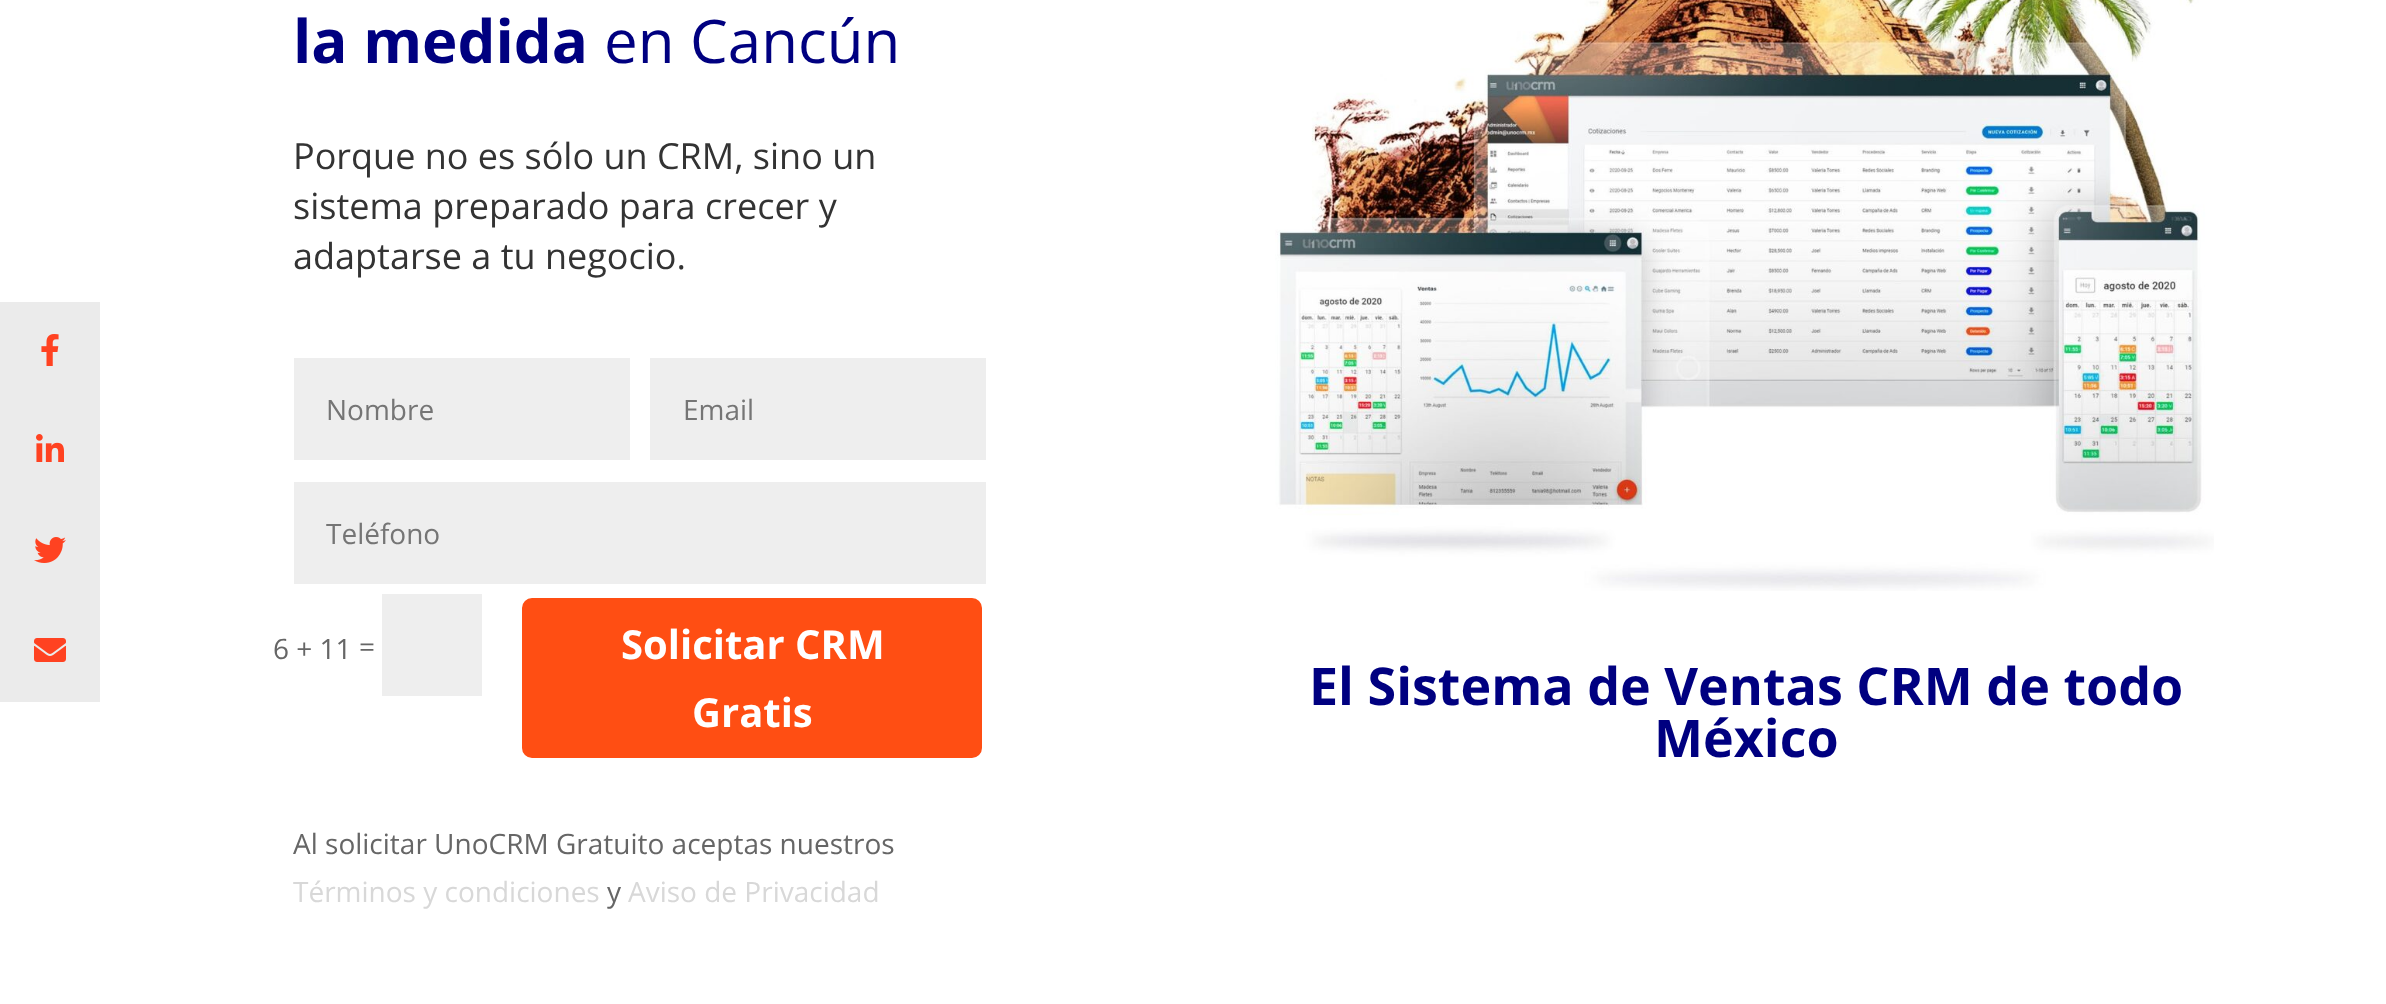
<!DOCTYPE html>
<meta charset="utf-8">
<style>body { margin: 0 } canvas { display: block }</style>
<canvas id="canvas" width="2386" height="1004"></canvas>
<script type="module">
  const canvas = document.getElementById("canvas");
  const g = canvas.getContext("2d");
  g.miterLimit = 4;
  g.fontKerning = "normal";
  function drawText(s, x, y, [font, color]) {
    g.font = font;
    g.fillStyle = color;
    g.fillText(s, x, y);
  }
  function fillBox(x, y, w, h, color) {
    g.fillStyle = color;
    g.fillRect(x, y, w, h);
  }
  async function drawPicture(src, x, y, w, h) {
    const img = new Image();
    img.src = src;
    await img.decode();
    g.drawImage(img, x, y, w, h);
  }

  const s1 = ["bold 60px Open Sans", "#000080"];
  const s2 = ["60px Open Sans", "#000080"];
  const s3 = ["36px Open Sans", "#333333"];
  const s4 = ["28px Open Sans", "#757575"];
  const s5 = ["28px Open Sans", "#666666"];
  const s6 = ["bold 40px Open Sans", "#FFFFFF"];
  const s7 = ["28px Open Sans", "#D8D8D8"];
  const s8 = ["bold 52px Open Sans", "#000080"];

  fillBox(0, 0, 2386, 1004, "#FFFFFF");
  fillBox(0, 302, 100, 400, "#EBEBEB");
  await drawPicture("pic1.png", 41, 334, 18, 32);
  await drawPicture("pic2.png", 36, 434, 28, 28);
  await drawPicture("pic3.png", 34, 537, 32, 26);
  await drawPicture("pic4.png", 34, 638, 32, 24);
  drawText("la medida", 293, 63, s1);
  drawText("en Cancún", 604, 63, s2);
  drawText("Porque no es sólo un CRM, sino un", 293, 169, s3);
  drawText("sistema preparado para crecer y", 293, 219, s3);
  drawText("adaptarse a tu negocio.", 293, 269, s3);
  fillBox(294, 358, 336, 102, "#EEEEEE");
  drawText("Nombre", 326, 420, s4);
  fillBox(650, 358, 336, 102, "#EEEEEE");
  drawText("Email", 683, 420, s4);
  fillBox(294, 482, 692, 102, "#EEEEEE");
  drawText("Teléfono", 326, 544, s4);
  drawText("6 + 11", 273, 659, s5);
  drawText("=", 359, 657, s5);
  fillBox(382, 594, 100, 102, "#EEEEEE");
  g.fillStyle = "#FF4E13";
  g.beginPath();
  g.roundRect(520, 596, 464, 164, 12);
  g.fill();
  g.strokeStyle = "#FFFFFF";
  g.lineWidth = 4;
  g.stroke();
  drawText("Solicitar CRM", 621, 659, s6);
  drawText("Gratis", 692, 727, s6);
  drawText("Al solicitar UnoCRM Gratuito aceptas nuestros", 293, 854, s5);
  drawText("Términos y condiciones", 293, 902, s7);
  drawText("y", 607, 902, s5);
  drawText("Aviso de Privacidad", 628, 902, s7);
  await drawPicture("pic5.png", 1275, 0, 939, 591);
  drawText("El Sistema de Ventas CRM de todo", 1309, 705, s8);
  drawText("México", 1654, 757, s8);
</script>
